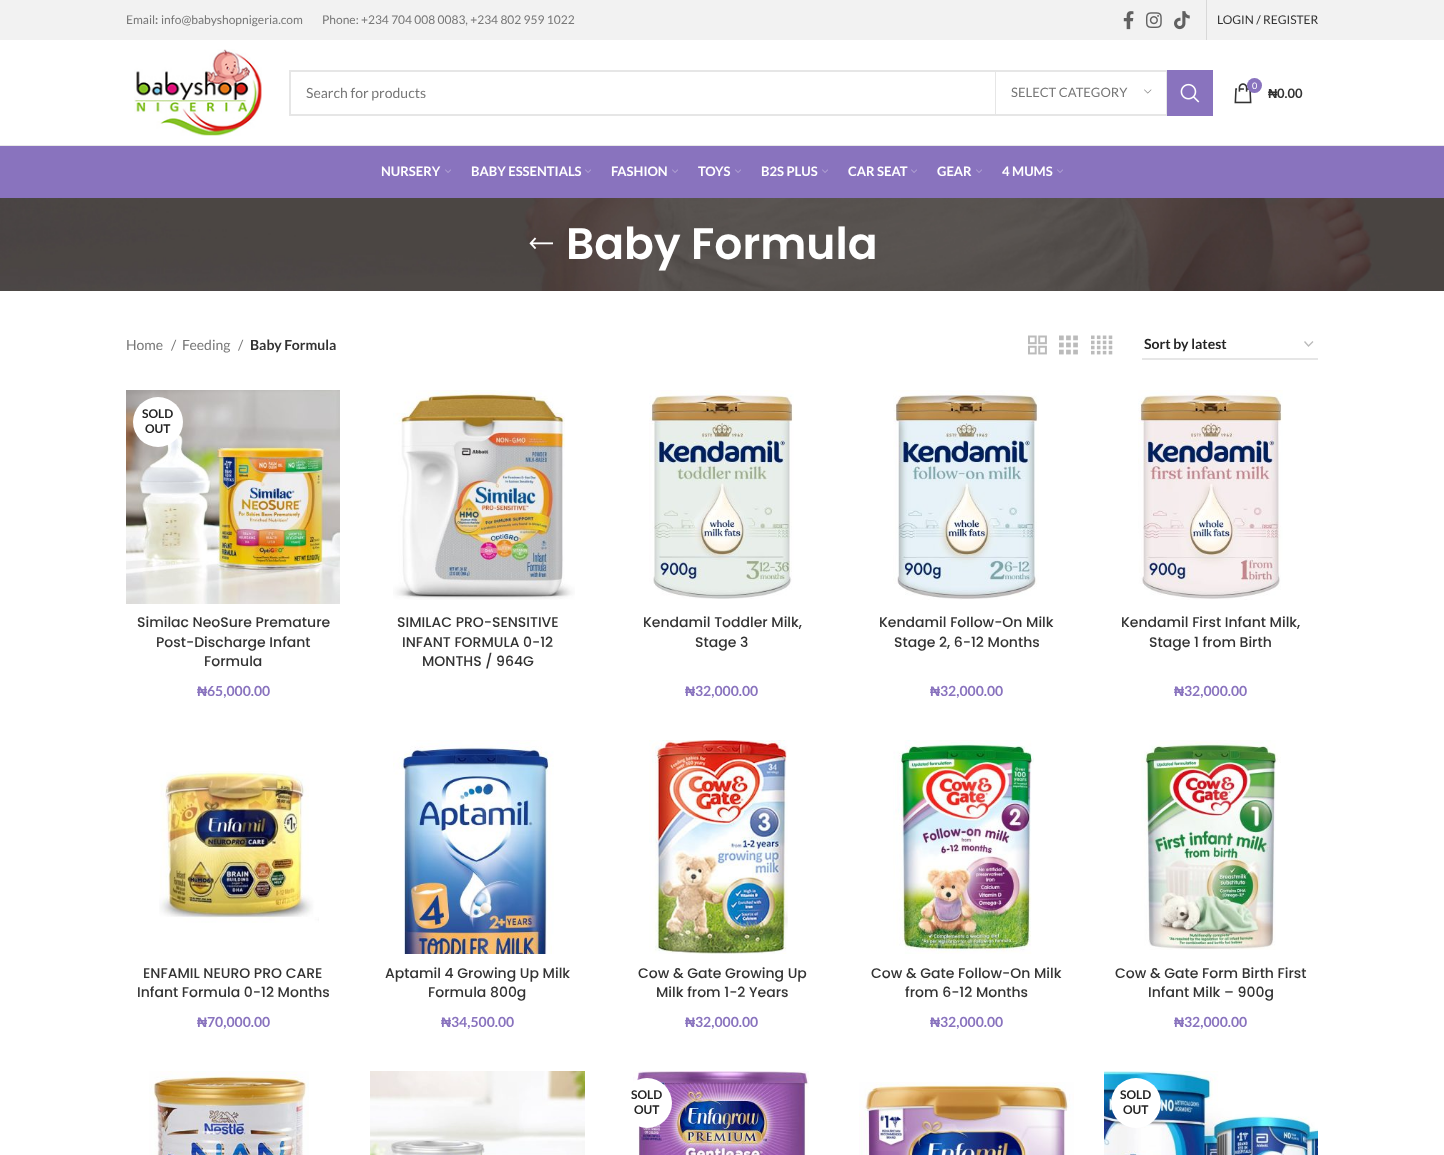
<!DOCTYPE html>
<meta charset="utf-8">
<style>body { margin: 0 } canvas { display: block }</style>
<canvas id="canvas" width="1444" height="1155"></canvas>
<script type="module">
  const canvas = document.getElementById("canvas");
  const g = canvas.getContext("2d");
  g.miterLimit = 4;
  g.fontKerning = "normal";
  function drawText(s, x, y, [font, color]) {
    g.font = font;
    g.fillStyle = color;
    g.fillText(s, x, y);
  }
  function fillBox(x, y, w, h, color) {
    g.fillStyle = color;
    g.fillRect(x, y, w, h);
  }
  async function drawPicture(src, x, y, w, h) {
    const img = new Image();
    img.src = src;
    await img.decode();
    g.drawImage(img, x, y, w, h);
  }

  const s1 = ["12px Lato", "#777777"];
  const s2 = ["bold 12px Lato", "#777777"];
  const s3 = ["12px Lato", "#333333"];
  const s4 = ["14px Lato", "#777777"];
  const s5 = ["13px Lato", "#777777"];
  const s6 = ["9px Lato", "#FFFFFF"];
  const s7 = ["bold 13px Liberation Sans", "#333333"];
  const s8 = ["bold 13px Lato", "#333333"];
  const s9 = ["bold 13px Lato", "#FFFFFF"];
  const s10 = ["600 44px Poppins", "#FFFFFF"];
  const s11 = ["bold 14px Lato", "#333333"];
  const s12 = ["bold 14px Lato", "#242424"];
  const s13 = ["bold 12px Lato", "#242424"];
  const s14 = ["500 14px Poppins", "#333333"];
  const s15 = ["bold 14px Liberation Sans", "#8973BE"];
  const s16 = ["bold 14px Lato", "#8973BE"];

  fillBox(0, 0, 1444, 1155, "#FFFFFF");
  fillBox(0, 0, 1444, 40, "#F2F2F2");
  drawText("Email", 126, 24, s1);
  drawText(":", 155, 24, s2);
  drawText("info@babyshopnigeria.com", 161, 24, s1);
  drawText("Phone: +234 704 008 0083, +234 802 959 1022", 322, 24, s1);
  await drawPicture("pic1.png", 1123, 11, 11, 19);
  await drawPicture("pic2.png", 1146, 12, 16, 16);
  await drawPicture("pic3.png", 1174, 11, 16, 19);
  fillBox(1206, 0, 1, 40, "#D8D8D8");
  drawText("LOGIN / REGISTER", 1217, 24, s3);
  fillBox(0, 145, 1444, 1, "#E8E8E8");
  await drawPicture("pic4.png", 134, 49, 128, 87);
  g.strokeStyle = "#E6E6E6";
  g.lineWidth = 2;
  g.strokeRect(290, 71, 922, 44);
  drawText("Search for products", 306, 98, s4);
  fillBox(1166, 72, 1, 42, "#E6E6E6");
  fillBox(995, 72, 1, 42, "#E6E6E6");
  drawText("SELECT CATEGORY", 1011, 97, s5);
  await drawPicture("pic5.png", 1144, 89, 8, 5);
  fillBox(1167, 70, 46, 46, "#8973BE");
  await drawPicture("pic6.png", 1180, 83, 20, 20);
  await drawPicture("pic7.png", 1234, 83, 18, 21);
  g.beginPath();
  g.arc(1254.5, 85.5, 7.5, 0, Math.PI * 2);
  g.fill();
  drawText("0", 1252, 89, s6);
  drawText("₦", 1268, 98, s7);
  drawText("0.00", 1277, 98, s8);
  fillBox(0, 146, 1444, 52, "#8973BE");
  drawText("NURSERY", 381, 176, s9);
  await drawPicture("pic8.png", 445, 169, 6, 4);
  drawText("BABY ESSENTIALS", 471, 176, s9);
  await drawPicture("pic8.png", 585, 169, 6, 4);
  drawText("FASHION", 611, 176, s9);
  await drawPicture("pic8.png", 672, 169, 6, 4);
  drawText("TOYS", 698, 176, s9);
  await drawPicture("pic8.png", 735, 169, 6, 4);
  drawText("B2S PLUS", 761, 176, s9);
  await drawPicture("pic8.png", 822, 169, 6, 4);
  drawText("CAR SEAT", 848, 176, s9);
  await drawPicture("pic8.png", 911, 169, 6, 4);
  drawText("GEAR", 937, 176, s9);
  await drawPicture("pic8.png", 976, 169, 6, 4);
  drawText("4 MUMS", 1002, 176, s9);
  await drawPicture("pic8.png", 1057, 169, 6, 4);
  await drawPicture("pic9.png", 0, 198, 1444, 93);
  await drawPicture("pic10.png", 529, 237, 24, 13);
  drawText("Baby Formula", 566, 259, s10);
  drawText("Home", 126, 350, s4);
  drawText("/", 171, 350, s4);
  drawText("Feeding", 182, 350, s4);
  drawText("/", 238, 350, s4);
  drawText("Baby Formula", 250, 350, s11);
  await drawPicture("pic11.png", 1028, 335, 19, 20);
  await drawPicture("pic12.png", 1059, 335, 19, 20);
  await drawPicture("pic13.png", 1091, 335, 22, 20);
  g.beginPath();
  g.moveTo(1304.5, 341.5);
  g.lineTo(1308.5, 346);
  g.lineTo(1313, 341.5);
  g.strokeStyle = "#BBBBBB";
  g.lineWidth = 1.4;
  g.stroke();
  fillBox(1142, 358, 176, 2, "#E6E6E6");
  drawText("Sort by latest", 1144, 349, s12);
  await drawPicture("pic14.png", 126, 390, 214, 214);
  g.fillStyle = "#FFFFFF";
  g.beginPath();
  g.arc(158, 422, 25, 0, Math.PI * 2);
  g.fill();
  drawText("SOLD", 142, 418, s13);
  drawText("OUT", 145, 433, s13);
  drawText("Similac NeoSure Premature", 137, 627, s14);
  drawText("Post-Discharge Infant", 156, 647, s14);
  drawText("Formula", 204, 666, s14);
  drawText("₦", 197, 696, s15);
  drawText("65,000.00", 207, 696, s16);
  await drawPicture("pic15.png", 393, 390, 182, 210);
  drawText("SIMILAC PRO-SENSITIVE", 397, 627, s14);
  drawText("INFANT FORMULA 0-12", 402, 647, s14);
  drawText("MONTHS / 964G", 422, 666, s14);
  await drawPicture("pic16.png", 649, 390, 145, 209);
  drawText("Kendamil Toddler Milk,", 643, 627, s14);
  drawText("Stage 3", 695, 647, s14);
  drawText("₦", 685, 696, s15);
  drawText("32,000.00", 695, 696, s16);
  await drawPicture("pic17.png", 893, 390, 146, 210);
  drawText("Kendamil Follow-On Milk", 879, 627, s14);
  drawText("Stage 2, 6-12 Months", 894, 647, s14);
  drawText("₦", 930, 696, s15);
  drawText("32,000.00", 940, 696, s16);
  await drawPicture("pic18.png", 1138, 390, 145, 210);
  drawText("Kendamil First Infant Milk,", 1121, 627, s14);
  drawText("Stage 1 from Birth", 1149, 647, s14);
  drawText("₦", 1174, 696, s15);
  drawText("32,000.00", 1184, 696, s16);
  await drawPicture("pic19.png", 159, 771, 160, 152);
  drawText("ENFAMIL NEURO PRO CARE", 143, 978, s14);
  drawText("Infant Formula 0-12 Months", 137, 997, s14);
  drawText("₦", 197, 1027, s15);
  drawText("70,000.00", 207, 1027, s16);
  await drawPicture("pic20.png", 393, 740, 161, 214);
  drawText("Aptamil 4 Growing Up Milk", 385, 978, s14);
  drawText("Formula 800g", 428, 997, s14);
  drawText("₦", 441, 1027, s15);
  drawText("34,500.00", 451, 1027, s16);
  await drawPicture("pic21.png", 649, 740, 139, 214);
  drawText("Cow & Gate Growing Up", 638, 978, s14);
  drawText("Milk from 1-2 Years", 656, 997, s14);
  drawText("₦", 685, 1027, s15);
  drawText("32,000.00", 695, 1027, s16);
  await drawPicture("pic22.png", 893, 740, 141, 214);
  drawText("Cow & Gate Follow-On Milk", 871, 978, s14);
  drawText("from 6-12 Months", 905, 997, s14);
  drawText("₦", 930, 1027, s15);
  drawText("32,000.00", 940, 1027, s16);
  await drawPicture("pic23.png", 1141, 740, 140, 210);
  drawText("Cow & Gate Form Birth First", 1115, 978, s14);
  drawText("Infant Milk – 900g", 1148, 997, s14);
  drawText("₦", 1174, 1027, s15);
  drawText("32,000.00", 1184, 1027, s16);
  await drawPicture("pic24.png", 149, 1071, 160, 84);
  await drawPicture("pic25.png", 370, 1071, 215, 84);
  await drawPicture("pic26.png", 633, 1071, 176, 84);
  g.fillStyle = "#FFFFFF";
  g.beginPath();
  g.arc(647, 1103, 25, 0, Math.PI * 2);
  g.fill();
  drawText("SOLD", 631, 1099, s13);
  drawText("OUT", 634, 1114, s13);
  await drawPicture("pic27.png", 859, 1082, 215, 73);
  await drawPicture("pic28.png", 1104, 1071, 214, 84);
  g.fillStyle = "#FFFFFF";
  g.beginPath();
  g.arc(1136, 1103, 25, 0, Math.PI * 2);
  g.fill();
  drawText("SOLD", 1120, 1099, s13);
  drawText("OUT", 1123, 1114, s13);
</script>
